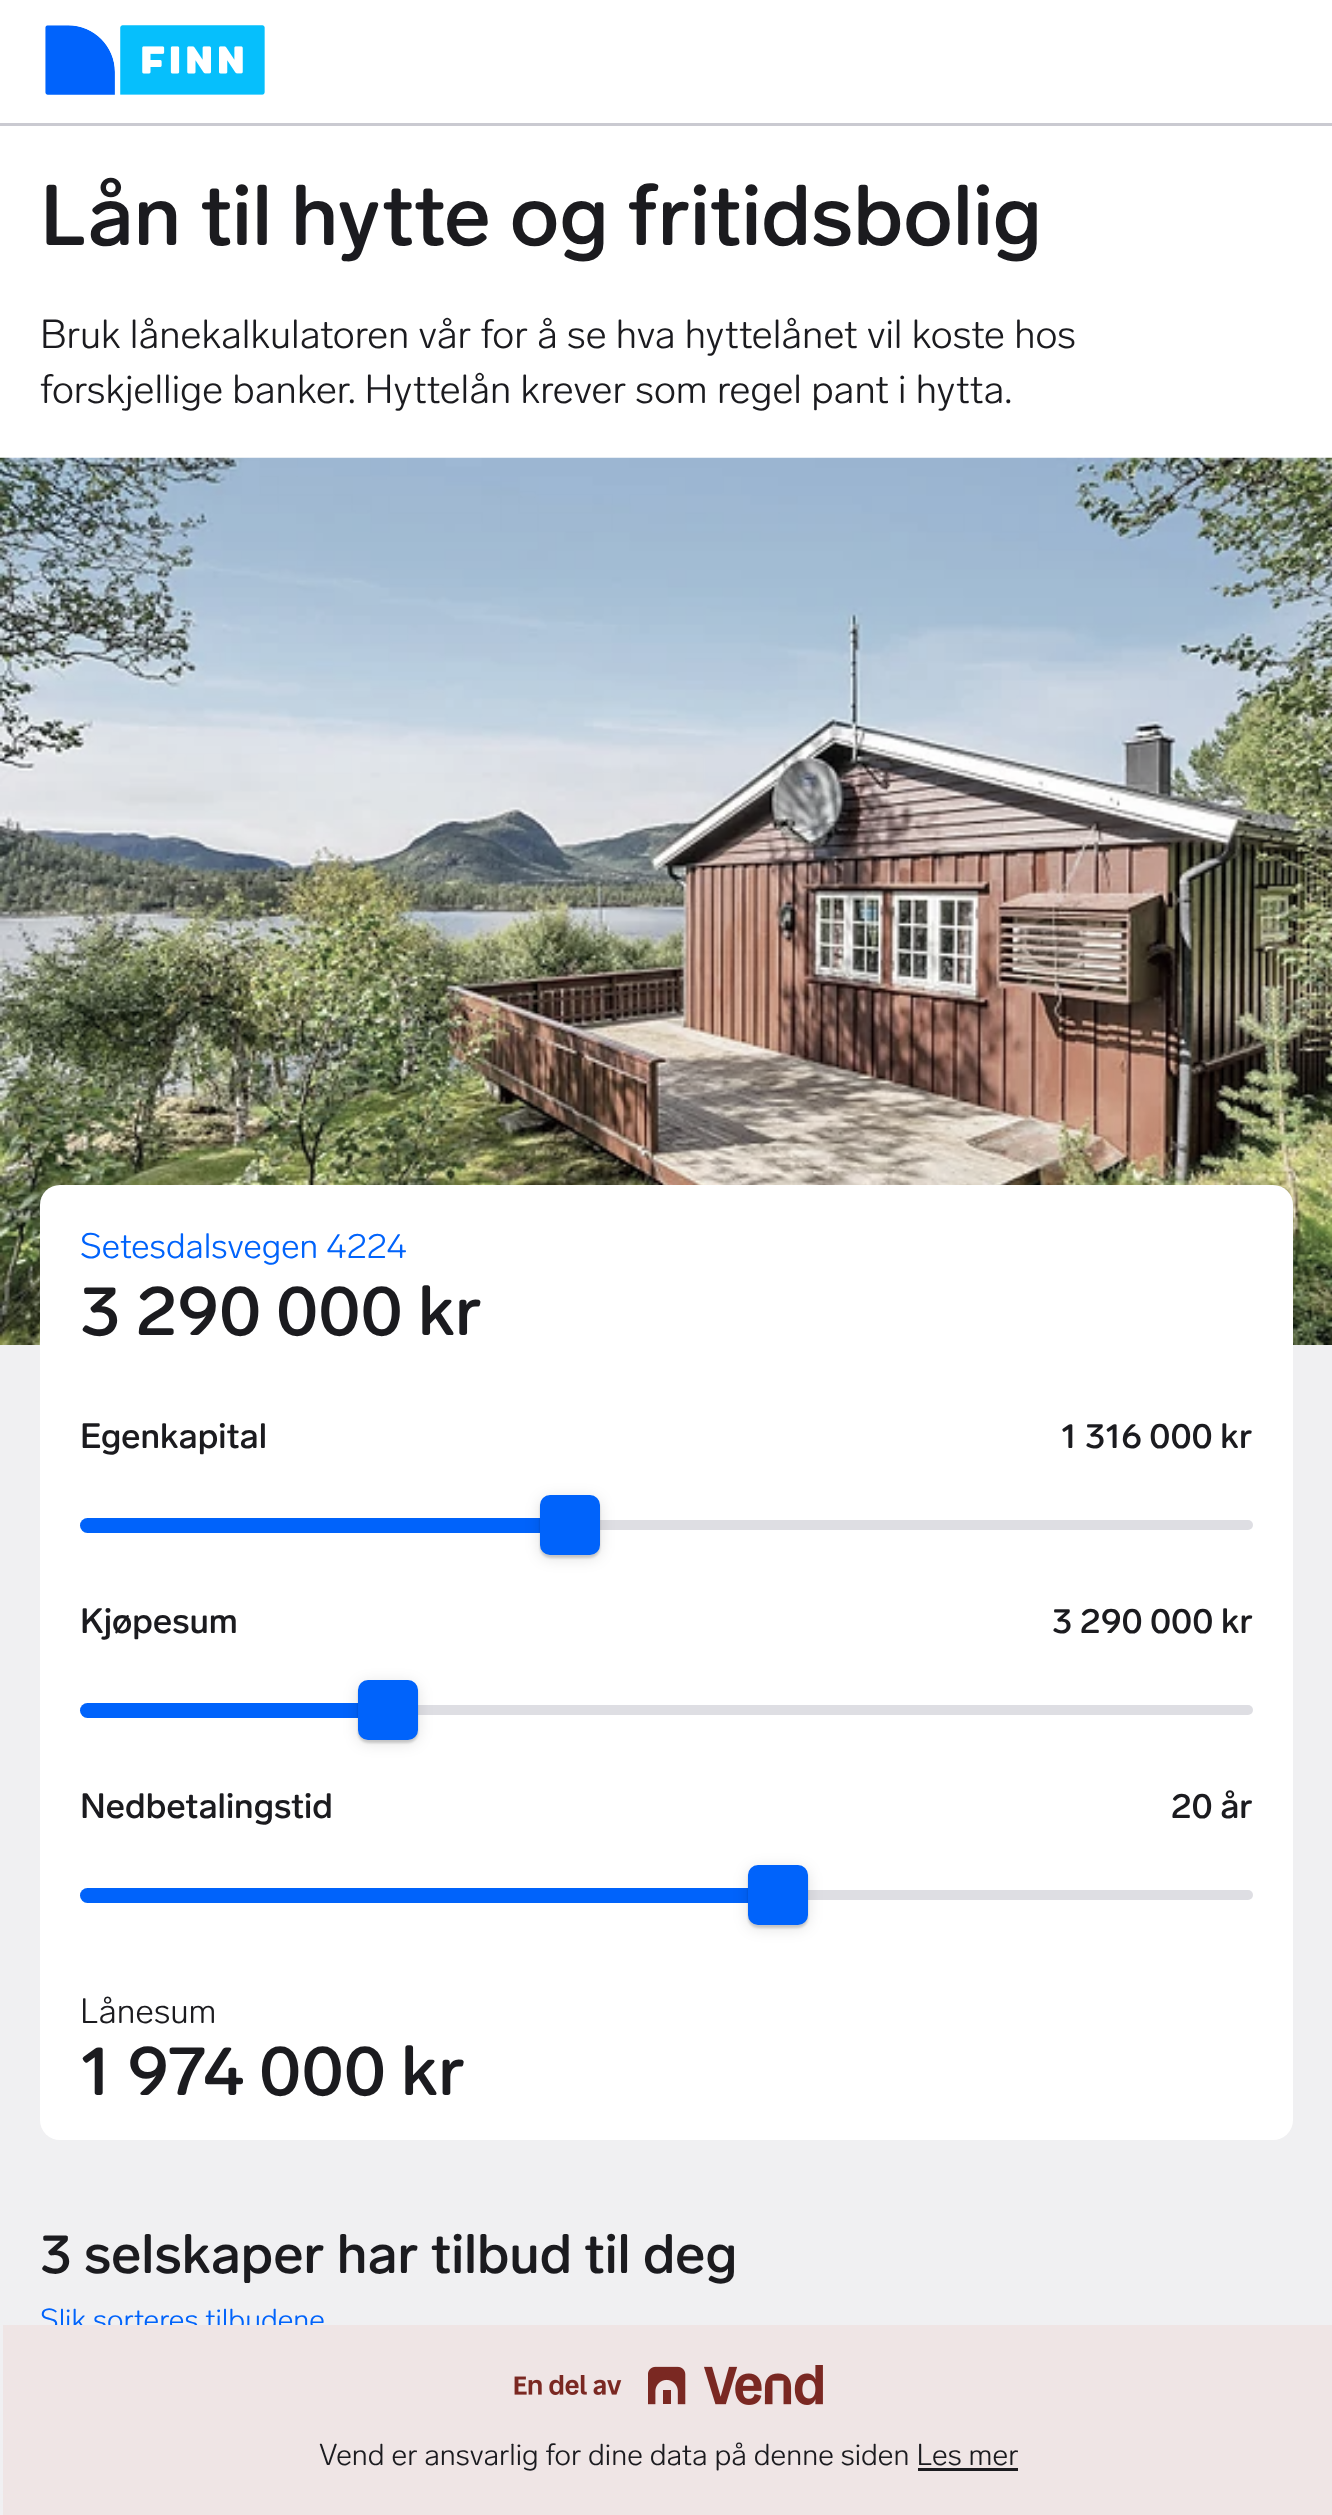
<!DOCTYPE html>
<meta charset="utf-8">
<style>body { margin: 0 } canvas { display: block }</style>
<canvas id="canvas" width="1332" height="2515"></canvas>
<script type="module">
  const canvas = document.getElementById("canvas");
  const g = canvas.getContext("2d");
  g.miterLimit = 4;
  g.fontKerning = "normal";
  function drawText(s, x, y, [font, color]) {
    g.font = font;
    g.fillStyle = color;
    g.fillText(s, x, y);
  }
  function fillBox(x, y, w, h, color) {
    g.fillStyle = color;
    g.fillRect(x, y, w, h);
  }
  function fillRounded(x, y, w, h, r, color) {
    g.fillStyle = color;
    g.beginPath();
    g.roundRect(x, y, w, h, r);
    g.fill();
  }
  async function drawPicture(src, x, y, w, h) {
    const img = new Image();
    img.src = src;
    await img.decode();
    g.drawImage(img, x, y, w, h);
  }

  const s1 = ["500 85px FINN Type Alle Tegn", "#1B1B1F"];
  const s2 = ["300 40px FINN Type Alle Tegn", "#1B1B1F"];
  const s3 = ["300 35px FINN Type Alle Tegn", "#0063FB"];
  const s4 = ["500 70px FINN Type Alle Tegn", "#1B1B1F"];
  const s5 = ["500 35px FINN Type Alle Tegn", "#1B1B1F"];
  const s6 = ["300 35px FINN Type Alle Tegn", "#1B1B1F"];
  const s7 = ["500 55px FINN Type Alle Tegn", "#1B1B1F"];
  const s8 = ["300 30px FINN Type Alle Tegn", "#0063FB"];
  const s9 = ["300 30px FINN Type Alle Tegn", "#1B1B1F"];

  fillBox(0, 0, 1332, 2515, "#FFFFFF");
  fillBox(0, 123, 1332, 3, "#CACAD1");
  await drawPicture("pic1.png", 45, 25, 220, 70);
  fillBox(0, 1345, 1332, 1170, "#F0F0F2");
  drawText("Lån til hytte og fritidsbolig", 40, 245, s1);
  drawText("Bruk lånekalkulatoren vår for å se hva hyttelånet vil koste hos", 40, 348, s2);
  drawText("forskjellige banker. Hyttelån krever som regel pant i hytta.", 40, 403, s2);
  await drawPicture("pic2.png", 0, 457, 1332, 888);
  fillRounded(40, 1185, 1253, 955, 20, "#FFFFFF");
  drawText("Setesdalsvegen 4224", 80, 1258, s3);
  drawText("3 290 000 kr", 80, 1335, s4);
  drawText("Egenkapital", 80, 1448, s5);
  drawText("1 316 000 kr", 1061, 1448, s5);
  fillRounded(80, 1520, 1173, 10, 5, "#DEDEE3");
  fillRounded(80, 1518, 483, 15, 7.5, "#0063FB");
  g.fillStyle = "rgba(0, 0, 0, 0.16)";
  g.filter = "blur(1px)";
  g.beginPath();
  g.roundRect(540, 1498, 60, 60, 10);
  g.fill();
  g.filter = "none";
  g.fillStyle = "rgba(0, 0, 0, 0.12)";
  g.filter = "blur(7.5px)";
  g.beginPath();
  g.roundRect(540, 1498, 60, 60, 10);
  g.fill();
  g.filter = "none";
  g.fillStyle = "#0063FB";
  g.beginPath();
  g.roundRect(542.5, 1497.5, 55, 55, 7.5);
  g.fill();
  g.strokeStyle = "#0063FB";
  g.lineWidth = 5;
  g.stroke();
  drawText("Kjøpesum", 80, 1633, s5);
  drawText("3 290 000 kr", 1052, 1633, s5);
  fillRounded(80, 1705, 1173, 10, 5, "#DEDEE3");
  fillRounded(80, 1703, 293, 15, 7.5, "#0063FB");
  g.fillStyle = "rgba(0, 0, 0, 0.16)";
  g.filter = "blur(1px)";
  g.beginPath();
  g.roundRect(358, 1683, 60, 60, 10);
  g.fill();
  g.filter = "none";
  g.fillStyle = "rgba(0, 0, 0, 0.12)";
  g.filter = "blur(7.5px)";
  g.beginPath();
  g.roundRect(358, 1683, 60, 60, 10);
  g.fill();
  g.filter = "none";
  g.fillStyle = "#0063FB";
  g.beginPath();
  g.roundRect(360.5, 1682.5, 55, 55, 7.5);
  g.fill();
  g.stroke();
  drawText("Nedbetalingstid", 80, 1818, s5);
  drawText("20 år", 1171, 1818, s5);
  fillRounded(80, 1890, 1173, 10, 5, "#DEDEE3");
  fillRounded(80, 1888, 703, 15, 7.5, "#0063FB");
  g.fillStyle = "rgba(0, 0, 0, 0.16)";
  g.filter = "blur(1px)";
  g.beginPath();
  g.roundRect(748, 1868, 60, 60, 10);
  g.fill();
  g.filter = "none";
  g.fillStyle = "rgba(0, 0, 0, 0.12)";
  g.filter = "blur(7.5px)";
  g.beginPath();
  g.roundRect(748, 1868, 60, 60, 10);
  g.fill();
  g.filter = "none";
  g.fillStyle = "#0063FB";
  g.beginPath();
  g.roundRect(750.5, 1867.5, 55, 55, 7.5);
  g.fill();
  g.stroke();
  drawText("Lånesum", 80, 2023, s6);
  drawText("1 974 000 kr", 80, 2095, s4);
  drawText("3 selskaper har tilbud til deg", 40, 2273, s7);
  drawText("Slik sorteres tilbudene", 40, 2330, s8);
  fillBox(3, 2325, 1329, 190, "#EFE5E5");
  await drawPicture("pic3.png", 514, 2365, 309, 40);
  drawText("Vend er ansvarlig for dine data på denne siden Les mer", 319, 2465, s9);
  fillBox(918, 2468, 100, 3, "#1B1B1F");
</script>
